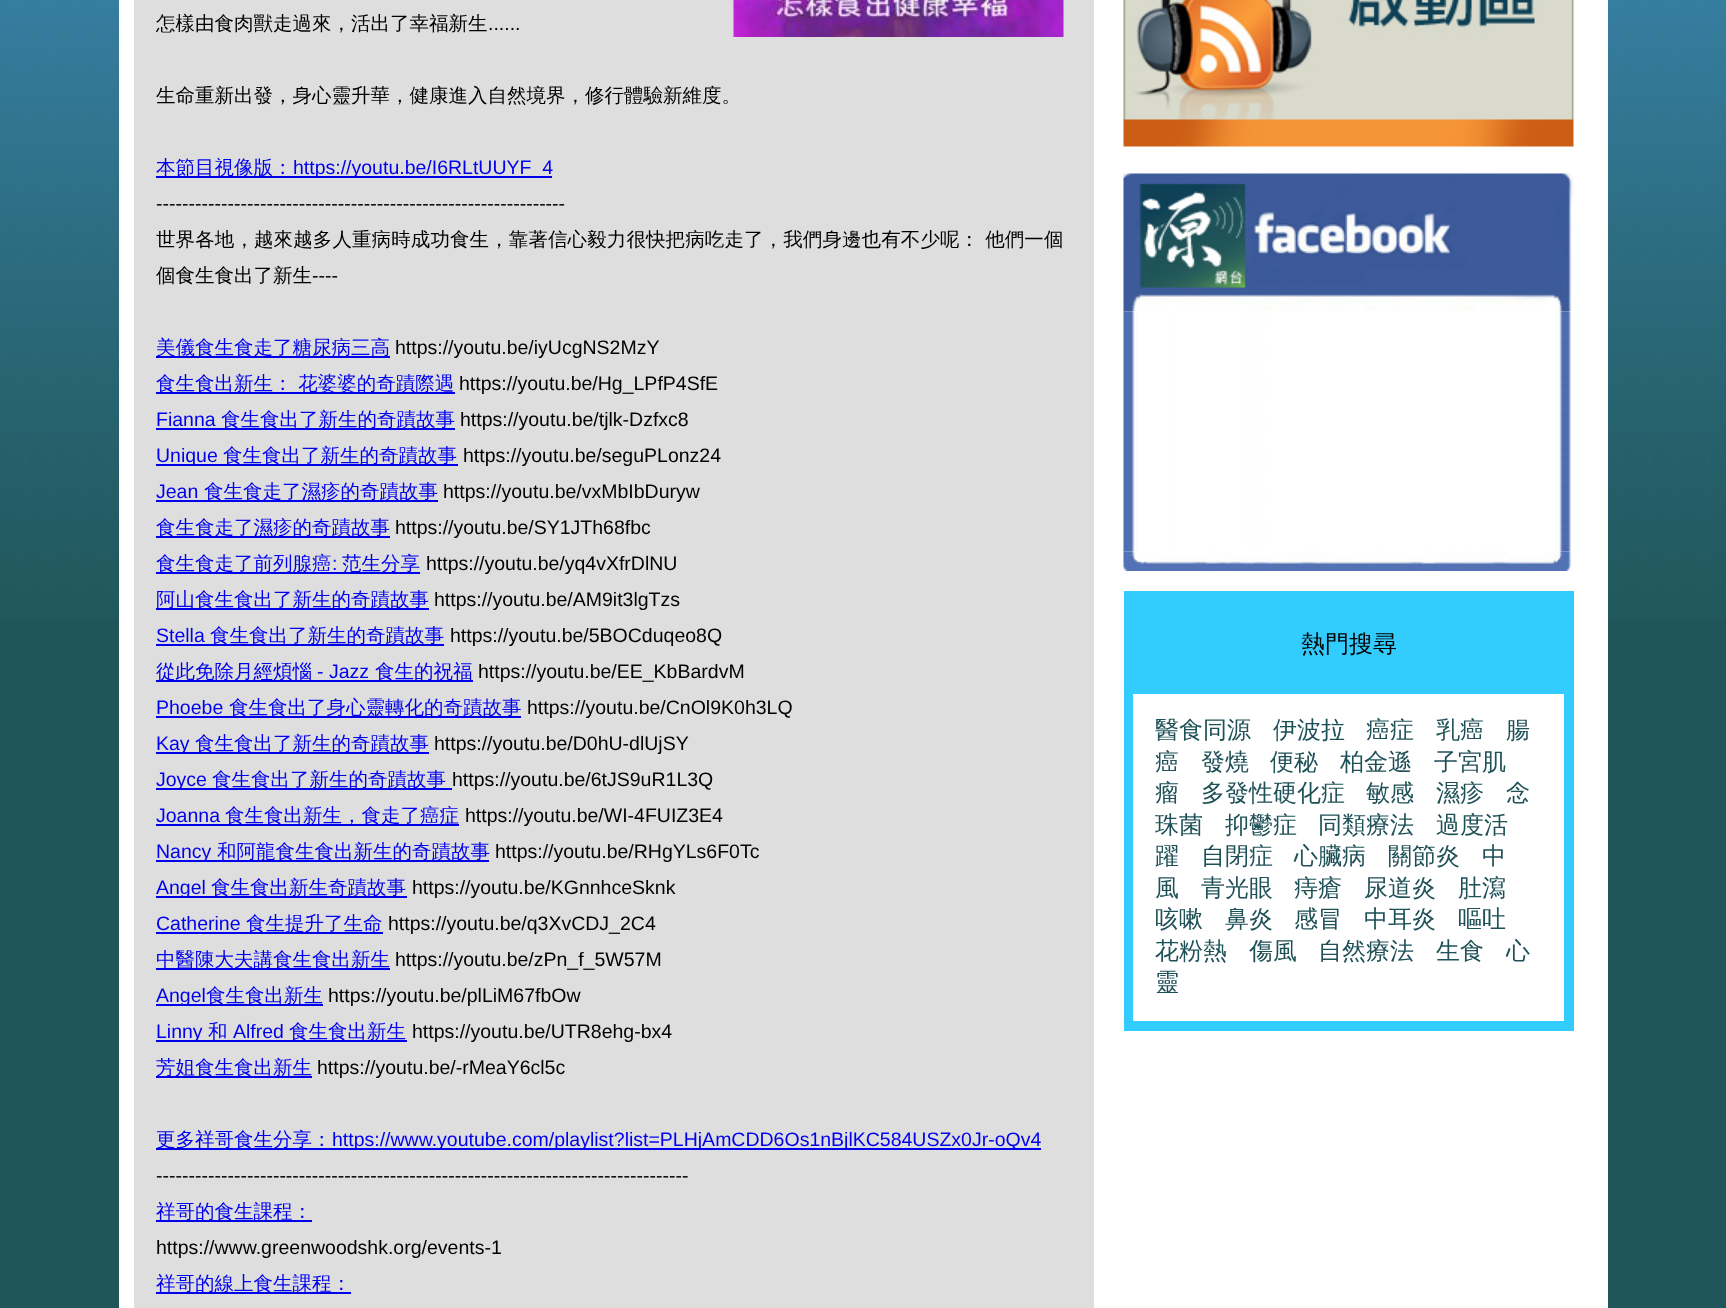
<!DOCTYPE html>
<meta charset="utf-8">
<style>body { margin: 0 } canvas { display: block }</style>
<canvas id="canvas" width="1726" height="1308"></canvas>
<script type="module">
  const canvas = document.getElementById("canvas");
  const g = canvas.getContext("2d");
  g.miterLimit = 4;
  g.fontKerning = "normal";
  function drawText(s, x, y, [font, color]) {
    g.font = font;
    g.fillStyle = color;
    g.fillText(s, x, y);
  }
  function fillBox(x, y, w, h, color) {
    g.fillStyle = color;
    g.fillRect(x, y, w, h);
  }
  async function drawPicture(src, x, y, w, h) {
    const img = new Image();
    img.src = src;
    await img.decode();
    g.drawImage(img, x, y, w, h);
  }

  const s1 = ["500 19.5px WenQuanYi Zen Hei", "#000000"];
  const s2 = ["19.5px Liberation Sans", "#000000"];
  const s3 = ["500 19.5px WenQuanYi Zen Hei", "#0000EE"];
  const s4 = ["19.5px Liberation Sans", "#0000EE"];
  const s5 = ["500 24px WenQuanYi Zen Hei", "#000000"];
  const s6 = ["500 24px WenQuanYi Zen Hei", "#1E5057"];

  fillBox(0, 0, 1726, 1308, "#205559");
  await drawPicture("pic1.png", 0, 0, 1726, 619);
  fillBox(119, 0, 1489, 1308, "#FFFFFF");
  fillBox(134, 0, 960, 1308, "#DEDEDE");
  drawText("怎樣由食肉獸走過來，活出了幸福新生", 156, 30, s1);
  drawText("......", 488, 30, s2);
  await drawPicture("pic2.png", 733, 0, 331, 37);
  drawText("生命重新出發，身心靈升華，健康進入自然境界，修行體驗新維度。", 156, 102, s1);
  fillBox(156, 176, 396, 2, "#0000EE");
  drawText("本節目視像版：", 156, 174, s3);
  drawText("https://youtu.be/I6RLtUUYF_4", 293, 174, s4);
  drawText("---------------------------------------------------------------", 156, 210, s2);
  g.letterSpacing = "0.1px";
  drawText("世界各地，越來越多人重病時成功食生，靠著信心毅力很快把病吃走了，我們身邊也有不少呢： 他們一個", 156, 246, s1);
  g.letterSpacing = "0px";
  drawText("個食生食出了新生", 156, 282, s1);
  drawText("----", 312, 282, s2);
  fillBox(156, 356, 234, 2, "#0000EE");
  drawText("美儀食生食走了糖尿病三高", 156, 354, s3);
  drawText("https://youtu.be/iyUcgNS2MzY", 395, 354, s2);
  fillBox(156, 392, 299, 2, "#0000EE");
  drawText("食生食出新生： 花婆婆的奇蹟際遇", 156, 390, s3);
  drawText("https://youtu.be/Hg_LPfP4SfE", 459, 390, s2);
  drawText("Fianna", 156, 426, s4);
  fillBox(156, 428, 299, 2, "#0000EE");
  drawText("食生食出了新生的奇蹟故事", 221, 426, s3);
  drawText("https://youtu.be/tjlk-Dzfxc8", 460, 426, s2);
  fillBox(156, 464, 302, 2, "#0000EE");
  drawText("Unique", 156, 462, s4);
  drawText("食生食出了新生的奇蹟故事", 223, 462, s3);
  drawText("https://youtu.be/seguPLonz24", 463, 462, s2);
  drawText("Jean", 156, 498, s4);
  fillBox(156, 500, 282, 2, "#0000EE");
  drawText("食生食走了濕疹的奇蹟故事", 204, 498, s3);
  drawText("https://youtu.be/vxMbIbDuryw", 443, 498, s2);
  fillBox(156, 536, 234, 2, "#0000EE");
  drawText("食生食走了濕疹的奇蹟故事", 156, 534, s3);
  drawText("https://youtu.be/SY1JTh68fbc", 395, 534, s2);
  fillBox(156, 572, 264, 2, "#0000EE");
  drawText("食生食走了前列腺癌", 156, 570, s3);
  drawText(":", 332, 570, s4);
  drawText("范生分享", 342, 570, s3);
  drawText("https://youtu.be/yq4vXfrDlNU", 426, 570, s2);
  fillBox(156, 608, 273, 2, "#0000EE");
  drawText("阿山食生食出了新生的奇蹟故事", 156, 606, s3);
  drawText("https://youtu.be/AM9it3lgTzs", 434, 606, s2);
  drawText("Stella", 156, 642, s4);
  fillBox(156, 644, 288, 2, "#0000EE");
  drawText("食生食出了新生的奇蹟故事", 210, 642, s3);
  drawText("https://youtu.be/5BOCduqeo8Q", 450, 642, s2);
  fillBox(156, 680, 317, 2, "#0000EE");
  drawText("從此免除月經煩惱", 156, 678, s3);
  drawText("- Jazz", 317, 678, s4);
  drawText("食生的祝福", 375, 678, s3);
  drawText("https://youtu.be/EE_KbBardvM", 478, 678, s2);
  drawText("Phoebe", 156, 714, s4);
  fillBox(156, 716, 365, 2, "#0000EE");
  drawText("食生食出了身心靈轉化的奇蹟故事", 229, 714, s3);
  drawText("https://youtu.be/CnOl9K0h3LQ", 527, 714, s2);
  fillBox(156, 752, 273, 2, "#0000EE");
  drawText("Kay", 156, 750, s4);
  drawText("食生食出了新生的奇蹟故事", 195, 750, s3);
  drawText("https://youtu.be/D0hU-dlUjSY", 434, 750, s2);
  fillBox(156, 788, 296, 2, "#0000EE");
  drawText("Joyce", 156, 786, s4);
  drawText("食生食出了新生的奇蹟故事", 212, 786, s3);
  drawText("https://youtu.be/6tJS9uR1L3Q", 452, 786, s2);
  drawText("Joanna", 156, 822, s4);
  fillBox(156, 824, 303, 2, "#0000EE");
  drawText("食生食出新生，食走了癌症", 225, 822, s3);
  drawText("https://youtu.be/WI-4FUIZ3E4", 465, 822, s2);
  fillBox(156, 860, 333, 2, "#0000EE");
  drawText("Nancy", 156, 858, s4);
  drawText("和阿龍食生食出新生的奇蹟故事", 217, 858, s3);
  drawText("https://youtu.be/RHgYLs6F0Tc", 495, 858, s2);
  fillBox(156, 896, 251, 2, "#0000EE");
  drawText("Angel", 156, 894, s4);
  drawText("食生食出新生奇蹟故事", 211, 894, s3);
  drawText("https://youtu.be/KGnnhceSknk", 412, 894, s2);
  drawText("Catherine", 156, 930, s4);
  fillBox(156, 932, 227, 2, "#0000EE");
  drawText("食生提升了生命", 246, 930, s3);
  drawText("https://youtu.be/q3XvCDJ_2C4", 388, 930, s2);
  fillBox(156, 968, 234, 2, "#0000EE");
  drawText("中醫陳大夫講食生食出新生", 156, 966, s3);
  drawText("https://youtu.be/zPn_f_5W57M", 395, 966, s2);
  fillBox(156, 1004, 167, 2, "#0000EE");
  drawText("Angel", 156, 1002, s4);
  drawText("食生食出新生", 206, 1002, s3);
  drawText("https://youtu.be/plLiM67fbOw", 328, 1002, s2);
  fillBox(156, 1040, 251, 2, "#0000EE");
  drawText("Linny", 156, 1038, s4);
  drawText("和", 208, 1038, s3);
  drawText("Alfred", 233, 1038, s4);
  drawText("食生食出新生", 289, 1038, s3);
  drawText("https://youtu.be/UTR8ehg-bx4", 412, 1038, s2);
  fillBox(156, 1076, 156, 2, "#0000EE");
  drawText("芳姐食生食出新生", 156, 1074, s3);
  drawText("https://youtu.be/-rMeaY6cl5c", 317, 1074, s2);
  fillBox(156, 1148, 885, 2, "#0000EE");
  drawText("更多祥哥食生分享：", 156, 1146, s3);
  drawText("https://www.youtube.com/playlist?list=PLHjAmCDD6Os1nBjlKC584USZx0Jr-oQv4", 332, 1146, s4);
  drawText("----------------------------------------------------------------------------------", 156, 1182, s2);
  fillBox(156, 1220, 156, 2, "#0000EE");
  drawText("祥哥的食生課程：", 156, 1218, s3);
  drawText("https://www.greenwoodshk.org/events-1", 156, 1254, s2);
  fillBox(156, 1292, 195, 2, "#0000EE");
  drawText("祥哥的線上食生課程：", 156, 1290, s3);
  await drawPicture("pic3.png", 1123, 0, 451, 147);
  await drawPicture("pic4.png", 1123, 173, 451, 139);
  await drawPicture("pic5.png", 1123, 311, 448, 241);
  await drawPicture("pic6.png", 1123, 551, 450, 20);
  g.strokeStyle = "#33CCFF";
  g.lineWidth = 8;
  g.strokeRect(1128, 595, 442, 432);
  fillBox(1132, 599, 434, 93, "#33CCFF");
  drawText("熱門搜尋", 1301, 652, s5);
  g.lineWidth = 2;
  g.strokeRect(1132, 693, 433, 329);
  drawText("醫食同源", 1155, 738, s6);
  drawText("伊波拉", 1273, 738, s6);
  drawText("癌症", 1366, 738, s6);
  drawText("乳癌", 1436, 738, s6);
  drawText("腸", 1506, 738, s6);
  drawText("癌", 1155, 770, s6);
  drawText("發燒", 1201, 770, s6);
  drawText("便秘", 1270, 770, s6);
  drawText("柏金遜", 1340, 770, s6);
  drawText("子宮肌", 1434, 770, s6);
  drawText("瘤", 1155, 801, s6);
  drawText("多發性硬化症", 1201, 801, s6);
  drawText("敏感", 1366, 801, s6);
  drawText("濕疹", 1436, 801, s6);
  drawText("念", 1506, 801, s6);
  drawText("珠菌", 1155, 833, s6);
  drawText("抑鬱症", 1225, 833, s6);
  drawText("同類療法", 1318, 833, s6);
  drawText("過度活", 1436, 833, s6);
  drawText("躍", 1155, 864, s6);
  drawText("自閉症", 1201, 864, s6);
  drawText("心臟病", 1294, 864, s6);
  drawText("關節炎", 1388, 864, s6);
  drawText("中", 1482, 864, s6);
  drawText("風", 1155, 896, s6);
  drawText("青光眼", 1201, 896, s6);
  drawText("痔瘡", 1294, 896, s6);
  drawText("尿道炎", 1364, 896, s6);
  drawText("肚瀉", 1458, 896, s6);
  drawText("咳嗽", 1155, 927, s6);
  drawText("鼻炎", 1225, 927, s6);
  drawText("感冒", 1294, 927, s6);
  drawText("中耳炎", 1364, 927, s6);
  drawText("嘔吐", 1458, 927, s6);
  drawText("花粉熱", 1155, 959, s6);
  drawText("傷風", 1249, 959, s6);
  drawText("自然療法", 1318, 959, s6);
  drawText("生食", 1436, 959, s6);
  drawText("心", 1506, 959, s6);
  drawText("靈", 1155, 990, s6);
</script>
